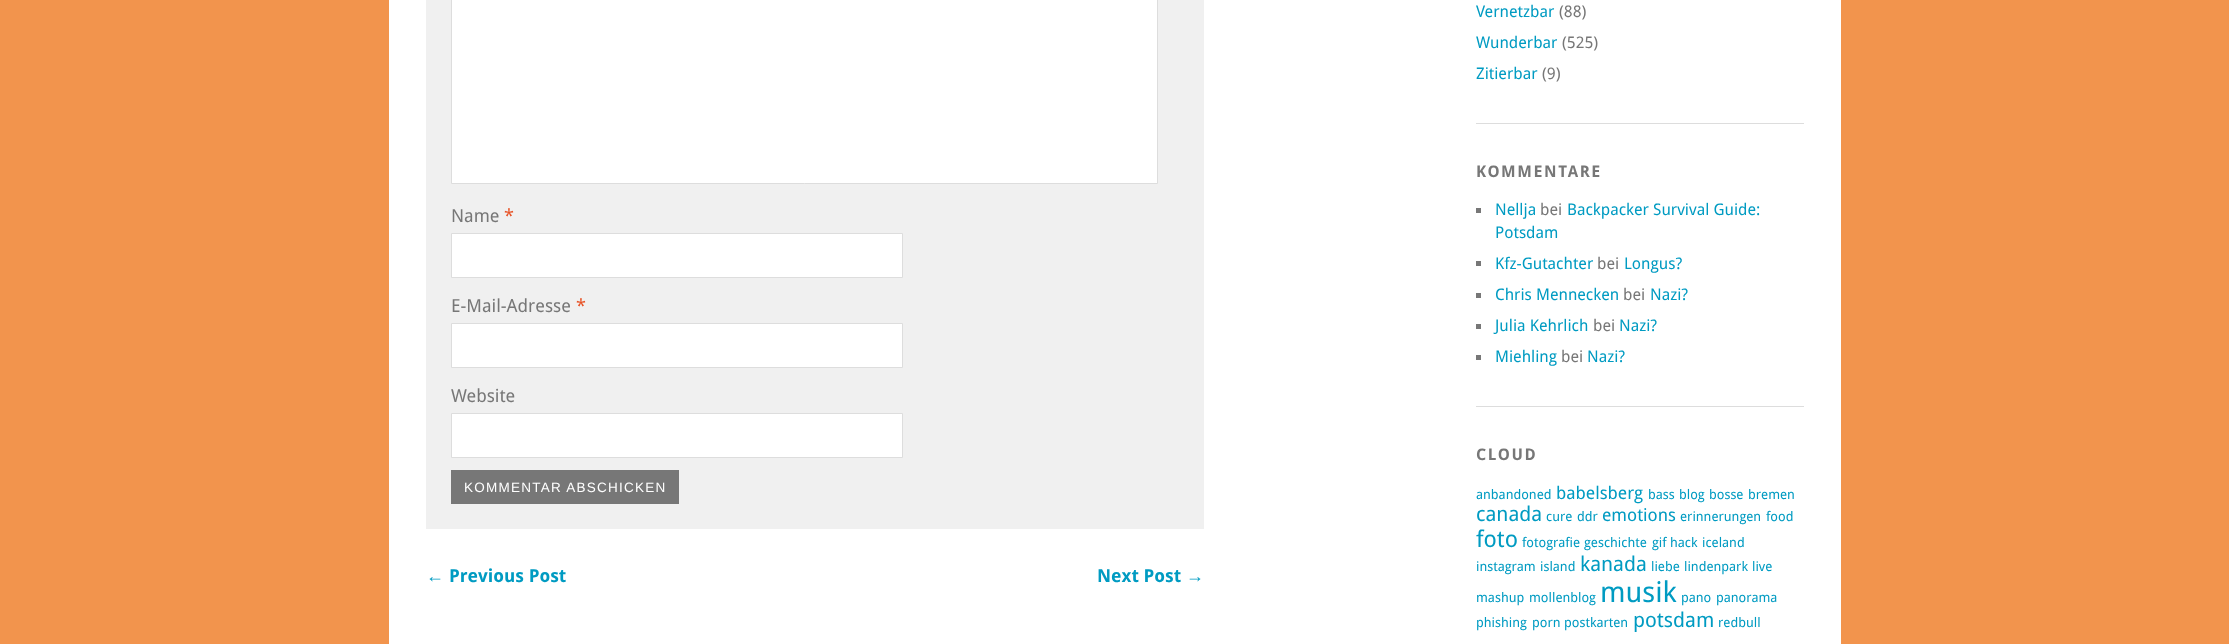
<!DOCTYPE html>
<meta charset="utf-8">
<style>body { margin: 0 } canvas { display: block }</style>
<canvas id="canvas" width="2229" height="644"></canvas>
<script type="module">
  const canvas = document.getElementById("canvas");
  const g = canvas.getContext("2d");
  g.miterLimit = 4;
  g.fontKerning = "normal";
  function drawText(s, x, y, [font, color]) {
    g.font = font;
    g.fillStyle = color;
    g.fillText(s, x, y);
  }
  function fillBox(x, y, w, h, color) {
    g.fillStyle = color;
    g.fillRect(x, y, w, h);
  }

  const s1 = ["18px Droid Sans", "#777777"];
  const s2 = ["18px Droid Sans", "#E75428"];
  const s3 = ["13.5px Liberation Sans", "#FFFFFF"];
  const s4 = ["bold 18px Liberation Sans", "#009BC2"];
  const s5 = ["bold 18px Droid Sans", "#009BC2"];
  const s6 = ["16px Droid Sans", "#009BC2"];
  const s7 = ["16px Droid Sans", "#777777"];
  const s8 = ["bold 16px Droid Sans", "#777777"];
  const s9 = ["13.25px Droid Sans", "#009BC2"];
  const s10 = ["17.5px Droid Sans", "#009BC2"];
  const s11 = ["20.5px Droid Sans", "#009BC2"];
  const s12 = ["23px Droid Sans", "#009BC2"];
  const s13 = ["28.5px Droid Sans", "#009BC2"];

  fillBox(0, 0, 2229, 644, "#F2944D");
  fillBox(389, 0, 1452, 644, "#FFFFFF");
  fillBox(426, 0, 778, 529, "#F0F0F0");
  g.fillStyle = "#FFFFFF";
  g.beginPath();
  g.rect(451.5, -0.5, 706, 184);
  g.fill();
  g.strokeStyle = "#DDDDDD";
  g.stroke();
  drawText("Name", 451, 222, s1);
  drawText("*", 504, 222, s2);
  g.fillStyle = "#FFFFFF";
  g.beginPath();
  g.rect(451.5, 233.5, 451, 44);
  g.fill();
  g.stroke();
  drawText("E-Mail-Adresse", 451, 312, s1);
  drawText("*", 576, 312, s2);
  g.fillStyle = "#FFFFFF";
  g.beginPath();
  g.rect(451.5, 323.5, 451, 44);
  g.fill();
  g.stroke();
  drawText("Website", 451, 402, s1);
  g.fillStyle = "#FFFFFF";
  g.beginPath();
  g.rect(451.5, 413.5, 451, 44);
  g.fill();
  g.stroke();
  fillBox(451, 470, 228, 34, "#777777");
  g.letterSpacing = "1.25px";
  drawText("KOMMENTAR ABSCHICKEN", 464, 492, s3);
  g.letterSpacing = "0px";
  drawText("←", 426, 582, s4);
  drawText("Previous Post", 449, 582, s5);
  drawText("Next Post", 1097, 582, s5);
  drawText("→", 1186, 582, s4);
  fillBox(1476, 123, 328, 1, "#DDDDDD");
  drawText("Vernetzbar", 1476, 17, s6);
  drawText("(88)", 1559, 17, s7);
  drawText("Wunderbar", 1476, 48, s6);
  drawText("(525)", 1562, 48, s7);
  drawText("Zitierbar", 1476, 79, s6);
  drawText("(9)", 1542, 79, s7);
  fillBox(1476, 406, 328, 1, "#DDDDDD");
  g.letterSpacing = "1.6px";
  drawText("KOMMENTARE", 1476, 177, s8);
  fillBox(1476, 208, 5, 5, "#777777");
  g.letterSpacing = "0px";
  drawText("Nellja", 1495, 215, s6);
  drawText("bei", 1540, 215, s7);
  drawText("Backpacker Survival Guide:", 1567, 215, s6);
  drawText("Potsdam", 1495, 238, s6);
  fillBox(1476, 261, 5, 5, "#777777");
  drawText("Kfz-Gutachter", 1495, 269, s6);
  drawText("bei", 1597, 269, s7);
  drawText("Longus?", 1624, 269, s6);
  fillBox(1476, 293, 5, 5, "#777777");
  drawText("Chris Mennecken", 1495, 300, s6);
  drawText("bei", 1623, 300, s7);
  drawText("Nazi?", 1650, 300, s6);
  fillBox(1476, 324, 5, 5, "#777777");
  drawText("Julia Kehrlich", 1495, 331, s6);
  drawText("bei", 1593, 331, s7);
  drawText("Nazi?", 1619, 331, s6);
  fillBox(1476, 355, 5, 5, "#777777");
  drawText("Miehling", 1495, 362, s6);
  drawText("bei", 1561, 362, s7);
  drawText("Nazi?", 1587, 362, s6);
  g.letterSpacing = "1.6px";
  drawText("CLOUD", 1476, 460, s8);
  g.letterSpacing = "0px";
  drawText("anbandoned", 1476, 499, s9);
  drawText("babelsberg", 1556, 499, s10);
  drawText("bass", 1648, 499, s9);
  drawText("blog", 1679, 499, s9);
  drawText("bosse", 1709, 499, s9);
  drawText("bremen", 1748, 499, s9);
  drawText("canada", 1476, 521, s11);
  drawText("cure", 1546, 521, s9);
  drawText("ddr", 1577, 521, s9);
  drawText("emotions", 1602, 521, s10);
  drawText("erinnerungen", 1680, 521, s9);
  drawText("food", 1766, 521, s9);
  drawText("foto", 1476, 547, s12);
  drawText("fotografie", 1522, 547, s9);
  drawText("geschichte", 1584, 547, s9);
  drawText("gif", 1652, 547, s9);
  drawText("hack", 1670, 547, s9);
  drawText("iceland", 1702, 547, s9);
  drawText("instagram", 1476, 571, s9);
  drawText("island", 1540, 571, s9);
  drawText("kanada", 1580, 571, s11);
  drawText("liebe", 1651, 571, s9);
  drawText("lindenpark", 1684, 571, s9);
  drawText("live", 1752, 571, s9);
  drawText("mashup", 1476, 602, s9);
  drawText("mollenblog", 1529, 602, s9);
  drawText("musik", 1600, 602, s13);
  drawText("pano", 1681, 602, s9);
  drawText("panorama", 1716, 602, s9);
  drawText("phishing", 1476, 627, s9);
  drawText("porn", 1532, 627, s9);
  drawText("postkarten", 1564, 627, s9);
  drawText("potsdam", 1633, 627, s11);
  drawText("redbull", 1718, 627, s9);
</script>
